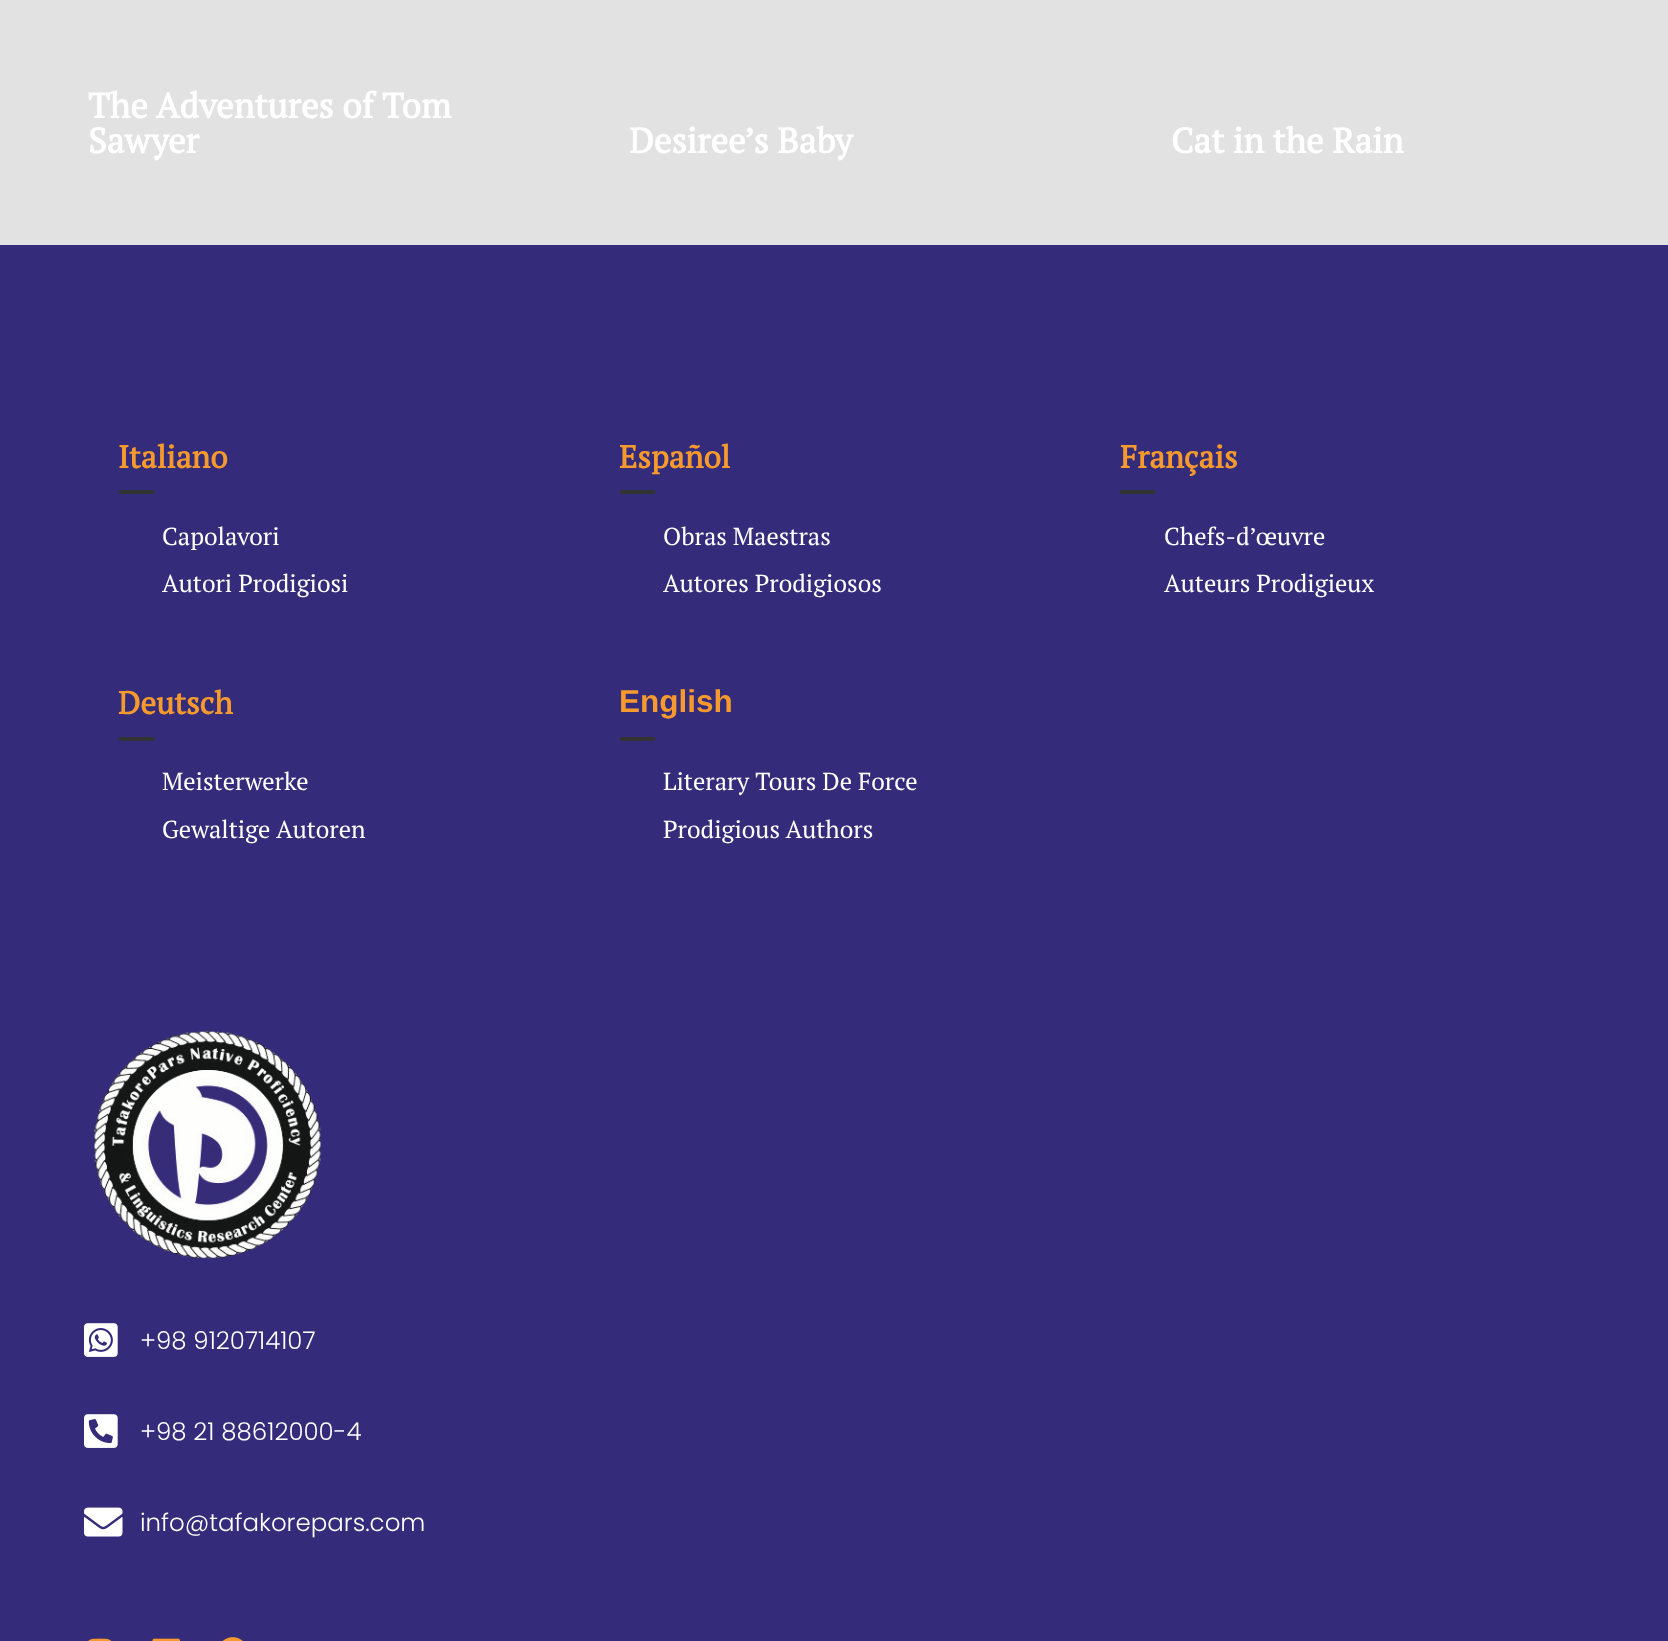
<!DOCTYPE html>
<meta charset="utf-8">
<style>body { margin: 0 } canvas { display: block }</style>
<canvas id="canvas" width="1668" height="1641"></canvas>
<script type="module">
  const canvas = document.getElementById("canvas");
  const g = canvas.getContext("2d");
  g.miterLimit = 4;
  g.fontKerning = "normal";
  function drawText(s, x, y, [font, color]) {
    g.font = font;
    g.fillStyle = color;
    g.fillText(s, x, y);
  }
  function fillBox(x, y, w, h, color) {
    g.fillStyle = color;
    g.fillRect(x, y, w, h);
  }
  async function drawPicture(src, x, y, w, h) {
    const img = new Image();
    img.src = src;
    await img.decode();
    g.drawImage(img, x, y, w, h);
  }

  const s1 = ["bold 35px PT Serif", "#FFFFFF"];
  const s2 = ["bold 31.5px PT Serif", "#F69A2D"];
  const s3 = ["24.5px PT Serif", "#FFFFFF"];
  const s4 = ["bold 31.5px Liberation Sans", "#F69A2D"];
  const s5 = ["300 24.5px Poppins", "#FFFFFF"];

  fillBox(0, 0, 1668, 1641, "#E3E2E2");
  drawText("The Adventures of Tom", 88, 118, s1);
  drawText("Sawyer", 88, 153, s1);
  drawText("Desiree’s Baby", 629, 153, s1);
  drawText("Cat in the Rain", 1171, 153, s1);
  fillBox(0, 245, 1668, 1396, "#342C7A");
  drawText("Italiano", 118, 468, s2);
  fillBox(119, 490, 35, 4, "#333333");
  drawText("Capolavori", 162, 545, s3);
  drawText("Autori Prodigiosi", 162, 592, s3);
  drawText("Deutsch", 118, 714, s2);
  fillBox(119, 737, 35, 4, "#333333");
  drawText("Meisterwerke", 162, 790, s3);
  drawText("Gewaltige Autoren", 162, 838, s3);
  drawText("Español", 619, 468, s2);
  fillBox(620, 490, 35, 4, "#333333");
  drawText("Obras Maestras", 663, 545, s3);
  drawText("Autores Prodigiosos", 663, 592, s3);
  drawText("English", 619, 712, s4);
  fillBox(620, 737, 35, 4, "#333333");
  drawText("Literary Tours De Force", 663, 790, s3);
  drawText("Prodigious Authors", 663, 838, s3);
  drawText("Français", 1120, 468, s2);
  fillBox(1120, 490, 35, 4, "#333333");
  drawText("Chefs-d’œuvre", 1164, 545, s3);
  drawText("Auteurs Prodigieux", 1164, 592, s3);
  await drawPicture("pic1.png", 94, 1030, 227, 229);
  await drawPicture("pic2.png", 84, 1323, 34, 34);
  drawText("+98 9120714107", 140, 1349, s5);
  await drawPicture("pic3.png", 84, 1414, 34, 34);
  drawText("+98 21 88612000-4", 140, 1440, s5);
  await drawPicture("pic4.png", 84, 1507, 39, 30);
  drawText("info@tafakorepars.com", 140, 1531, s5);
  await drawPicture("pic5.png", 88, 1638, 24, 3);
  await drawPicture("pic6.png", 152, 1638, 28, 3);
  await drawPicture("pic7.png", 222, 1637, 21, 4);
</script>
